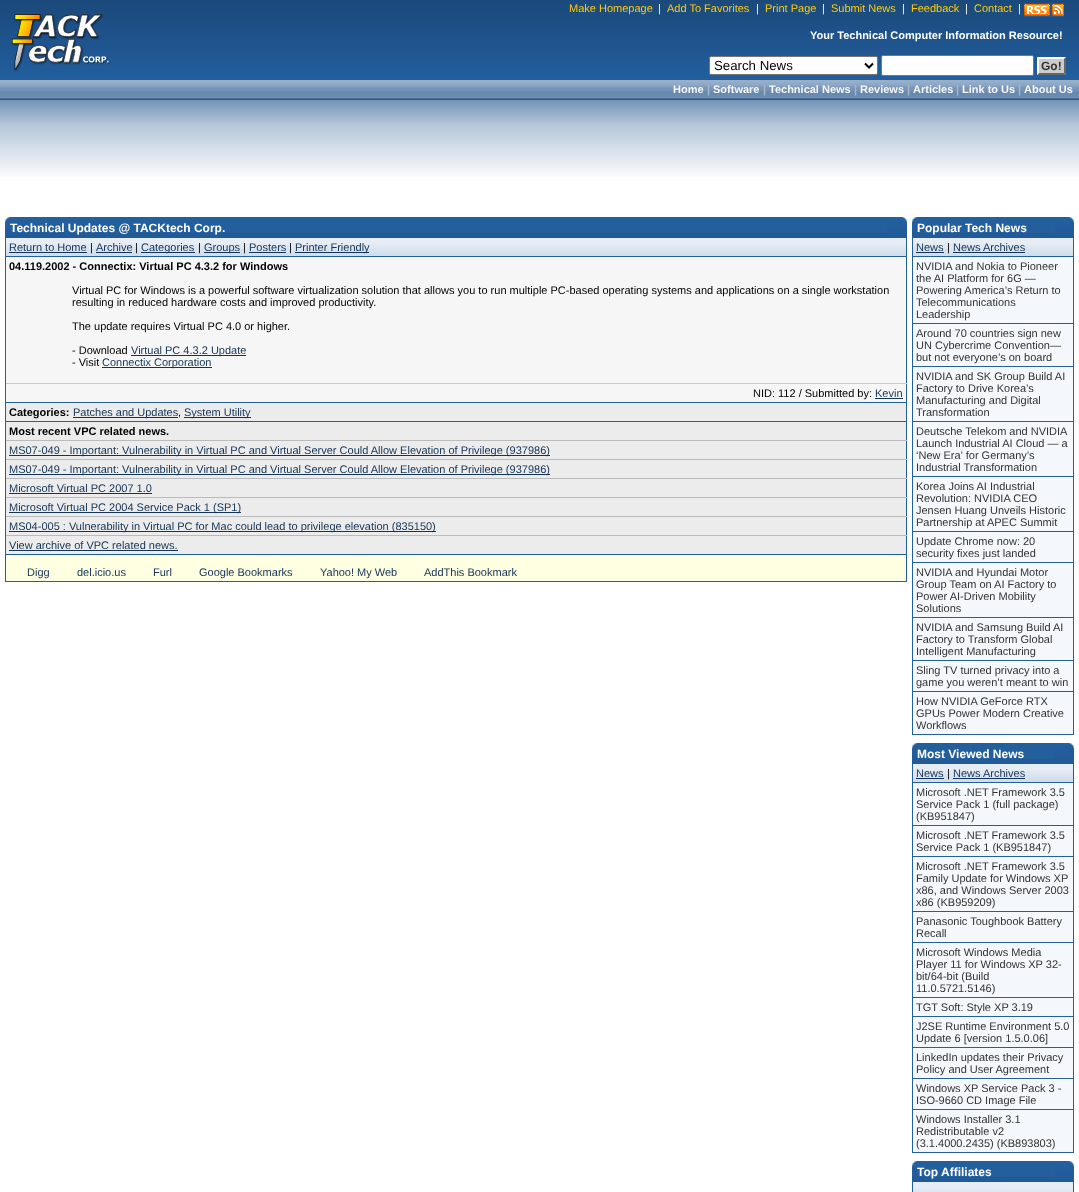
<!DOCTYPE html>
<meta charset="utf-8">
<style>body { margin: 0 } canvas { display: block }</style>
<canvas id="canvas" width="1079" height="1192"></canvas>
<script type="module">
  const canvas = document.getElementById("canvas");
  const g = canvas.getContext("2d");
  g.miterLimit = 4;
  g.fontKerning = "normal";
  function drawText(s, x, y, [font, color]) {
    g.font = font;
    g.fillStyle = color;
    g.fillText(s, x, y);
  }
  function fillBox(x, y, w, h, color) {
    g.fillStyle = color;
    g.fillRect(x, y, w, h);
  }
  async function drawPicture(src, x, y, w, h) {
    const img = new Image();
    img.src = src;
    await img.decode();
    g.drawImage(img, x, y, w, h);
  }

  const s1 = ["11px Liberation Sans", "#FFCC00"];
  const s2 = ["11px Liberation Sans", "#F6F6F6"];
  const s3 = ["bold 11px Liberation Sans", "#FFFFFF"];
  const s4 = ["13.25px Liberation Sans", "#000000"];
  const s5 = ["bold 12px Liberation Sans", "#333333"];
  const s6 = ["bold 11px Liberation Sans", "#F6F6F6"];
  const s7 = ["bold 11px Liberation Sans", "#A8B8CA"];
  const s8 = ["bold 12px Liberation Sans", "#FFFFFF"];
  const s9 = ["11px Liberation Sans", "#133457"];
  const s10 = ["11px Liberation Sans", "#000000"];
  const s11 = ["bold 11px Liberation Sans", "#000000"];
  const s12 = ["11px Liberation Sans", "#333333"];

  fillBox(0, 0, 1079, 1192, "#FFFFFF");
  await drawPicture("pic1.png", 0, 0, 1079, 177);
  drawText("Make Homepage", 569, 12, s1);
  drawText("|", 658, 12, s2);
  drawText("Add To Favorites", 667, 12, s1);
  drawText("|", 756, 12, s2);
  drawText("Print Page", 765, 12, s1);
  drawText("|", 822, 12, s2);
  drawText("Submit News", 831, 12, s1);
  drawText("|", 902, 12, s2);
  drawText("Feedback", 911, 12, s1);
  drawText("|", 965, 12, s2);
  drawText("Contact", 974, 12, s1);
  drawText("|", 1018, 12, s2);
  await drawPicture("pic2.png", 1024, 3, 40, 14);
  await drawPicture("pic3.png", 12, 14, 98, 58);
  drawText("Your Technical Computer Information Resource!", 810, 39, s3);
  g.beginPath();
  g.roundRect(709.5, 56.5, 168, 18, 1.5);
  g.fill();
  g.strokeStyle = "#767676";
  g.stroke();
  g.beginPath();
  g.moveTo(865, 63.5);
  g.lineTo(869, 67.5);
  g.lineTo(873, 63.5);
  g.strokeStyle = "#000000";
  g.lineWidth = 2;
  g.stroke();
  drawText("Search News", 714, 70, s4);
  g.fillStyle = "#FFFFFF";
  g.beginPath();
  g.roundRect(881.5, 55.5, 152, 20, 1.5);
  g.fill();
  g.strokeStyle = "#767676";
  g.lineWidth = 1;
  g.stroke();
  fillBox(1037, 57, 29, 18, "#CCCCCC");
  g.fillStyle = "#FFFFFF";
  g.beginPath();
  g.moveTo(1037, 57);
  g.lineTo(1066, 57);
  g.lineTo(1064, 59);
  g.lineTo(1039, 59);
  g.closePath();
  g.fill();
  g.fillStyle = "#666666";
  g.beginPath();
  g.moveTo(1066, 57);
  g.lineTo(1066, 75);
  g.lineTo(1064, 73);
  g.lineTo(1064, 59);
  g.closePath();
  g.fill();
  g.beginPath();
  g.moveTo(1066, 75);
  g.lineTo(1037, 75);
  g.lineTo(1039, 73);
  g.lineTo(1064, 73);
  g.closePath();
  g.fill();
  g.fillStyle = "#FFFFFF";
  g.beginPath();
  g.moveTo(1037, 75);
  g.lineTo(1037, 57);
  g.lineTo(1039, 59);
  g.lineTo(1039, 73);
  g.closePath();
  g.fill();
  drawText("Go!", 1041, 70, s5);
  fillBox(0, 98, 1079, 1, "#4B7096");
  drawText("Home", 673, 93, s6);
  drawText("|", 707, 93, s7);
  drawText("Software", 713, 93, s6);
  drawText("|", 763, 93, s7);
  drawText("Technical News", 769, 93, s6);
  drawText("|", 854, 93, s7);
  drawText("Reviews", 860, 93, s6);
  drawText("|", 907, 93, s7);
  drawText("Articles", 913, 93, s6);
  drawText("|", 956, 93, s7);
  drawText("Link to Us", 962, 93, s6);
  drawText("|", 1018, 93, s7);
  drawText("About Us", 1024, 93, s6);
  await drawPicture("pic4.png", 5, 217, 5, 21);
  fillBox(10, 217, 877, 16, "#235E9D");
  fillBox(10, 233, 877, 5, "#215A97");
  drawText("Technical Updates @ TACKtech Corp.", 10, 232, s8);
  await drawPicture("pic5.png", 887, 217, 20, 21);
  fillBox(5, 238, 1, 344, "#235E9D");
  await drawPicture("pic6.png", 6, 238, 900, 18);
  fillBox(906, 238, 1, 344, "#235E9D");
  fillBox(6, 256, 901, 1, "#235E9D");
  drawText("Return to Home", 9, 251, s9);
  fillBox(9, 252, 78, 1, "#133457");
  drawText("|", 90, 251, s10);
  drawText("Archive", 96, 251, s9);
  fillBox(96, 252, 36, 1, "#133457");
  drawText("|", 135, 251, s10);
  fillBox(141, 252, 54, 1, "#133457");
  drawText("Categories", 141, 251, s9);
  drawText("|", 198, 251, s10);
  fillBox(204, 252, 36, 1, "#133457");
  drawText("Groups", 204, 251, s9);
  drawText("|", 243, 251, s10);
  drawText("Posters", 249, 251, s9);
  fillBox(249, 252, 37, 1, "#133457");
  drawText("|", 289, 251, s10);
  fillBox(295, 252, 74, 1, "#133457");
  drawText("Printer Friendly", 295, 251, s9);
  fillBox(6, 257, 900, 126, "#F6F6F6");
  fillBox(6, 383, 901, 1, "#CCCCCC");
  drawText("04.119.2002 - Connectix: Virtual PC 4.3.2 for Windows", 9, 270, s11);
  drawText("Virtual PC for Windows is a powerful software virtualization solution that allows you to run multiple PC-based operating systems and applications on a single workstation", 72, 294, s10);
  drawText("resulting in reduced hardware costs and improved productivity.", 72, 306, s10);
  drawText("The update requires Virtual PC 4.0 or higher.", 72, 330, s10);
  drawText("- Download", 72, 354, s10);
  fillBox(131, 355, 115, 1, "#133457");
  drawText("Virtual PC 4.3.2 Update", 131, 354, s9);
  drawText("- Visit", 72, 366, s10);
  fillBox(102, 367, 110, 1, "#133457");
  drawText("Connectix Corporation", 102, 366, s9);
  fillBox(6, 384, 900, 18, "#F6F6F6");
  fillBox(6, 402, 901, 1, "#235E9D");
  drawText("NID: 112 / Submitted by:", 753, 397, s10);
  drawText("Kevin", 875, 397, s9);
  fillBox(875, 398, 28, 1, "#133457");
  fillBox(6, 403, 900, 18, "#ECECEC");
  fillBox(6, 421, 901, 1, "#235E9D");
  drawText("Categories:", 9, 416, s11);
  fillBox(73, 417, 105, 1, "#133457");
  drawText("Patches and Updates", 73, 416, s9);
  drawText(",", 178, 416, s10);
  fillBox(184, 417, 67, 1, "#133457");
  drawText("System Utility", 184, 416, s9);
  fillBox(6, 422, 900, 18, "#ECECEC");
  fillBox(6, 440, 901, 1, "#BBBBBB");
  drawText("Most recent VPC related news.", 9, 435, s11);
  fillBox(6, 441, 900, 18, "#ECECEC");
  fillBox(6, 459, 901, 1, "#BBBBBB");
  fillBox(9, 455, 541, 1, "#133457");
  drawText("MS07-049 - Important: Vulnerability in Virtual PC and Virtual Server Could Allow Elevation of Privilege (937986)", 9, 454, s9);
  fillBox(6, 460, 900, 18, "#ECECEC");
  fillBox(6, 478, 901, 1, "#BBBBBB");
  fillBox(9, 474, 541, 1, "#133457");
  drawText("MS07-049 - Important: Vulnerability in Virtual PC and Virtual Server Could Allow Elevation of Privilege (937986)", 9, 473, s9);
  fillBox(6, 479, 900, 18, "#ECECEC");
  fillBox(6, 497, 901, 1, "#BBBBBB");
  drawText("Microsoft Virtual PC 2007 1.0", 9, 492, s9);
  fillBox(9, 493, 143, 1, "#133457");
  fillBox(6, 498, 900, 18, "#ECECEC");
  fillBox(6, 516, 901, 1, "#BBBBBB");
  fillBox(9, 512, 232, 1, "#133457");
  drawText("Microsoft Virtual PC 2004 Service Pack 1 (SP1)", 9, 511, s9);
  fillBox(6, 517, 900, 18, "#ECECEC");
  fillBox(6, 535, 901, 1, "#BBBBBB");
  fillBox(9, 531, 427, 1, "#133457");
  drawText("MS04-005 : Vulnerability in Virtual PC for Mac could lead to privilege elevation (835150)", 9, 530, s9);
  fillBox(6, 536, 900, 18, "#ECECEC");
  fillBox(6, 554, 901, 1, "#235E9D");
  drawText("View archive of VPC related news.", 9, 549, s9);
  fillBox(9, 550, 169, 1, "#133457");
  fillBox(6, 555, 900, 26, "#FFFFE1");
  fillBox(6, 581, 901, 1, "#235E9D");
  drawText("Digg", 27, 576, s9);
  drawText("del.icio.us", 77, 576, s9);
  drawText("Furl", 153, 576, s9);
  drawText("Google Bookmarks", 199, 576, s9);
  drawText("Yahoo! My Web", 320, 576, s9);
  drawText("AddThis Bookmark", 424, 576, s9);
  await drawPicture("pic4.png", 912, 217, 5, 21);
  fillBox(917, 217, 137, 16, "#235E9D");
  fillBox(917, 233, 137, 5, "#215A97");
  drawText("Popular Tech News", 917, 232, s8);
  await drawPicture("pic5.png", 1054, 217, 20, 21);
  fillBox(912, 238, 1, 19, "#235E9D");
  await drawPicture("pic7.png", 913, 238, 160, 18);
  fillBox(1073, 238, 1, 497, "#235E9D");
  fillBox(913, 256, 161, 1, "#235E9D");
  drawText("News", 916, 251, s9);
  fillBox(916, 252, 28, 1, "#133457");
  drawText("|", 947, 251, s10);
  drawText("News Archives", 953, 251, s9);
  fillBox(953, 252, 72, 1, "#133457");
  fillBox(913, 257, 160, 66, "#F4F7FB");
  fillBox(912, 323, 162, 1, "#235E9D");
  fillBox(912, 257, 1, 67, "#235E9D");
  drawText("NVIDIA and Nokia to Pioneer", 916, 270, s12);
  drawText("the AI Platform for 6G —", 916, 282, s12);
  drawText("Powering America’s Return to", 916, 294, s12);
  drawText("Telecommunications", 916, 306, s12);
  drawText("Leadership", 916, 318, s12);
  fillBox(913, 324, 160, 42, "#F4F7FB");
  fillBox(912, 366, 162, 1, "#235E9D");
  fillBox(912, 324, 1, 43, "#235E9D");
  drawText("Around 70 countries sign new", 916, 337, s12);
  drawText("UN Cybercrime Convention—", 916, 349, s12);
  drawText("but not everyone’s on board", 916, 361, s12);
  fillBox(913, 367, 160, 54, "#F4F7FB");
  fillBox(912, 421, 162, 1, "#235E9D");
  fillBox(912, 367, 1, 55, "#235E9D");
  drawText("NVIDIA and SK Group Build AI", 916, 380, s12);
  drawText("Factory to Drive Korea’s", 916, 392, s12);
  drawText("Manufacturing and Digital", 916, 404, s12);
  drawText("Transformation", 916, 416, s12);
  fillBox(913, 422, 160, 54, "#F4F7FB");
  fillBox(912, 476, 162, 1, "#235E9D");
  fillBox(912, 422, 1, 55, "#235E9D");
  drawText("Deutsche Telekom and NVIDIA", 916, 435, s12);
  drawText("Launch Industrial AI Cloud — a", 916, 447, s12);
  drawText("‘New Era’ for Germany’s", 916, 459, s12);
  drawText("Industrial Transformation", 916, 471, s12);
  fillBox(913, 477, 160, 54, "#F4F7FB");
  fillBox(912, 531, 162, 1, "#235E9D");
  fillBox(912, 477, 1, 55, "#235E9D");
  drawText("Korea Joins AI Industrial", 916, 490, s12);
  drawText("Revolution: NVIDIA CEO", 916, 502, s12);
  drawText("Jensen Huang Unveils Historic", 916, 514, s12);
  drawText("Partnership at APEC Summit", 916, 526, s12);
  fillBox(913, 532, 160, 30, "#F4F7FB");
  fillBox(912, 562, 162, 1, "#235E9D");
  fillBox(912, 532, 1, 31, "#235E9D");
  drawText("Update Chrome now: 20", 916, 545, s12);
  drawText("security fixes just landed", 916, 557, s12);
  fillBox(913, 563, 160, 54, "#F4F7FB");
  fillBox(912, 617, 162, 1, "#235E9D");
  fillBox(912, 563, 1, 55, "#235E9D");
  drawText("NVIDIA and Hyundai Motor", 916, 576, s12);
  drawText("Group Team on AI Factory to", 916, 588, s12);
  drawText("Power AI-Driven Mobility", 916, 600, s12);
  drawText("Solutions", 916, 612, s12);
  fillBox(913, 618, 160, 42, "#F4F7FB");
  fillBox(912, 660, 162, 1, "#235E9D");
  fillBox(912, 618, 1, 43, "#235E9D");
  drawText("NVIDIA and Samsung Build AI", 916, 631, s12);
  drawText("Factory to Transform Global", 916, 643, s12);
  drawText("Intelligent Manufacturing", 916, 655, s12);
  fillBox(913, 661, 160, 30, "#F4F7FB");
  fillBox(912, 691, 162, 1, "#235E9D");
  fillBox(912, 661, 1, 31, "#235E9D");
  drawText("Sling TV turned privacy into a", 916, 674, s12);
  drawText("game you weren’t meant to win", 916, 686, s12);
  fillBox(913, 692, 160, 42, "#F4F7FB");
  fillBox(912, 734, 162, 1, "#235E9D");
  fillBox(912, 692, 1, 43, "#235E9D");
  drawText("How NVIDIA GeForce RTX", 916, 705, s12);
  drawText("GPUs Power Modern Creative", 916, 717, s12);
  drawText("Workflows", 916, 729, s12);
  await drawPicture("pic4.png", 912, 743, 5, 21);
  fillBox(917, 743, 137, 16, "#235E9D");
  fillBox(917, 759, 137, 5, "#215A97");
  drawText("Most Viewed News", 917, 758, s8);
  await drawPicture("pic5.png", 1054, 743, 20, 21);
  fillBox(912, 764, 1, 19, "#235E9D");
  await drawPicture("pic7.png", 913, 764, 160, 18);
  fillBox(1073, 764, 1, 389, "#235E9D");
  fillBox(913, 782, 161, 1, "#235E9D");
  drawText("News", 916, 777, s9);
  fillBox(916, 778, 28, 1, "#133457");
  drawText("|", 947, 777, s10);
  drawText("News Archives", 953, 777, s9);
  fillBox(953, 778, 72, 1, "#133457");
  fillBox(913, 783, 160, 42, "#F4F7FB");
  fillBox(912, 825, 162, 1, "#235E9D");
  fillBox(912, 783, 1, 43, "#235E9D");
  drawText("Microsoft .NET Framework 3.5", 916, 796, s12);
  drawText("Service Pack 1 (full package)", 916, 808, s12);
  drawText("(KB951847)", 916, 820, s12);
  fillBox(913, 826, 160, 30, "#F4F7FB");
  fillBox(912, 856, 162, 1, "#235E9D");
  fillBox(912, 826, 1, 31, "#235E9D");
  drawText("Microsoft .NET Framework 3.5", 916, 839, s12);
  drawText("Service Pack 1 (KB951847)", 916, 851, s12);
  fillBox(913, 857, 160, 54, "#F4F7FB");
  fillBox(912, 911, 162, 1, "#235E9D");
  fillBox(912, 857, 1, 55, "#235E9D");
  drawText("Microsoft .NET Framework 3.5", 916, 870, s12);
  drawText("Family Update for Windows XP", 916, 882, s12);
  drawText("x86, and Windows Server 2003", 916, 894, s12);
  drawText("x86 (KB959209)", 916, 906, s12);
  fillBox(913, 912, 160, 30, "#F4F7FB");
  fillBox(912, 942, 162, 1, "#235E9D");
  fillBox(912, 912, 1, 31, "#235E9D");
  drawText("Panasonic Toughbook Battery", 916, 925, s12);
  drawText("Recall", 916, 937, s12);
  fillBox(913, 943, 160, 54, "#F4F7FB");
  fillBox(912, 997, 162, 1, "#235E9D");
  fillBox(912, 943, 1, 55, "#235E9D");
  drawText("Microsoft Windows Media", 916, 956, s12);
  drawText("Player 11 for Windows XP 32-", 916, 968, s12);
  drawText("bit/64-bit (Build", 916, 980, s12);
  drawText("11.0.5721.5146)", 916, 992, s12);
  fillBox(913, 998, 160, 18, "#F4F7FB");
  fillBox(912, 1016, 162, 1, "#235E9D");
  fillBox(912, 998, 1, 19, "#235E9D");
  drawText("TGT Soft: Style XP 3.19", 916, 1011, s12);
  fillBox(913, 1017, 160, 30, "#F4F7FB");
  fillBox(912, 1047, 162, 1, "#235E9D");
  fillBox(912, 1017, 1, 31, "#235E9D");
  drawText("J2SE Runtime Environment 5.0", 916, 1030, s12);
  drawText("Update 6 [version 1.5.0.06]", 916, 1042, s12);
  fillBox(913, 1048, 160, 30, "#F4F7FB");
  fillBox(912, 1078, 162, 1, "#235E9D");
  fillBox(912, 1048, 1, 31, "#235E9D");
  drawText("LinkedIn updates their Privacy", 916, 1061, s12);
  drawText("Policy and User Agreement", 916, 1073, s12);
  fillBox(913, 1079, 160, 30, "#F4F7FB");
  fillBox(912, 1109, 162, 1, "#235E9D");
  fillBox(912, 1079, 1, 31, "#235E9D");
  drawText("Windows XP Service Pack 3 -", 916, 1092, s12);
  drawText("ISO-9660 CD Image File", 916, 1104, s12);
  fillBox(913, 1110, 160, 42, "#F4F7FB");
  fillBox(912, 1152, 162, 1, "#235E9D");
  fillBox(912, 1110, 1, 43, "#235E9D");
  drawText("Windows Installer 3.1", 916, 1123, s12);
  drawText("Redistributable v2", 916, 1135, s12);
  drawText("(3.1.4000.2435) (KB893803)", 916, 1147, s12);
  await drawPicture("pic4.png", 912, 1161, 5, 21);
  fillBox(917, 1161, 137, 16, "#235E9D");
  fillBox(917, 1177, 137, 5, "#215A97");
  drawText("Top Affiliates", 917, 1176, s8);
  await drawPicture("pic5.png", 1054, 1161, 20, 21);
  fillBox(912, 1182, 1, 10, "#235E9D");
  await drawPicture("pic8.png", 913, 1182, 160, 10);
  fillBox(1073, 1182, 1, 10, "#235E9D");
</script>
